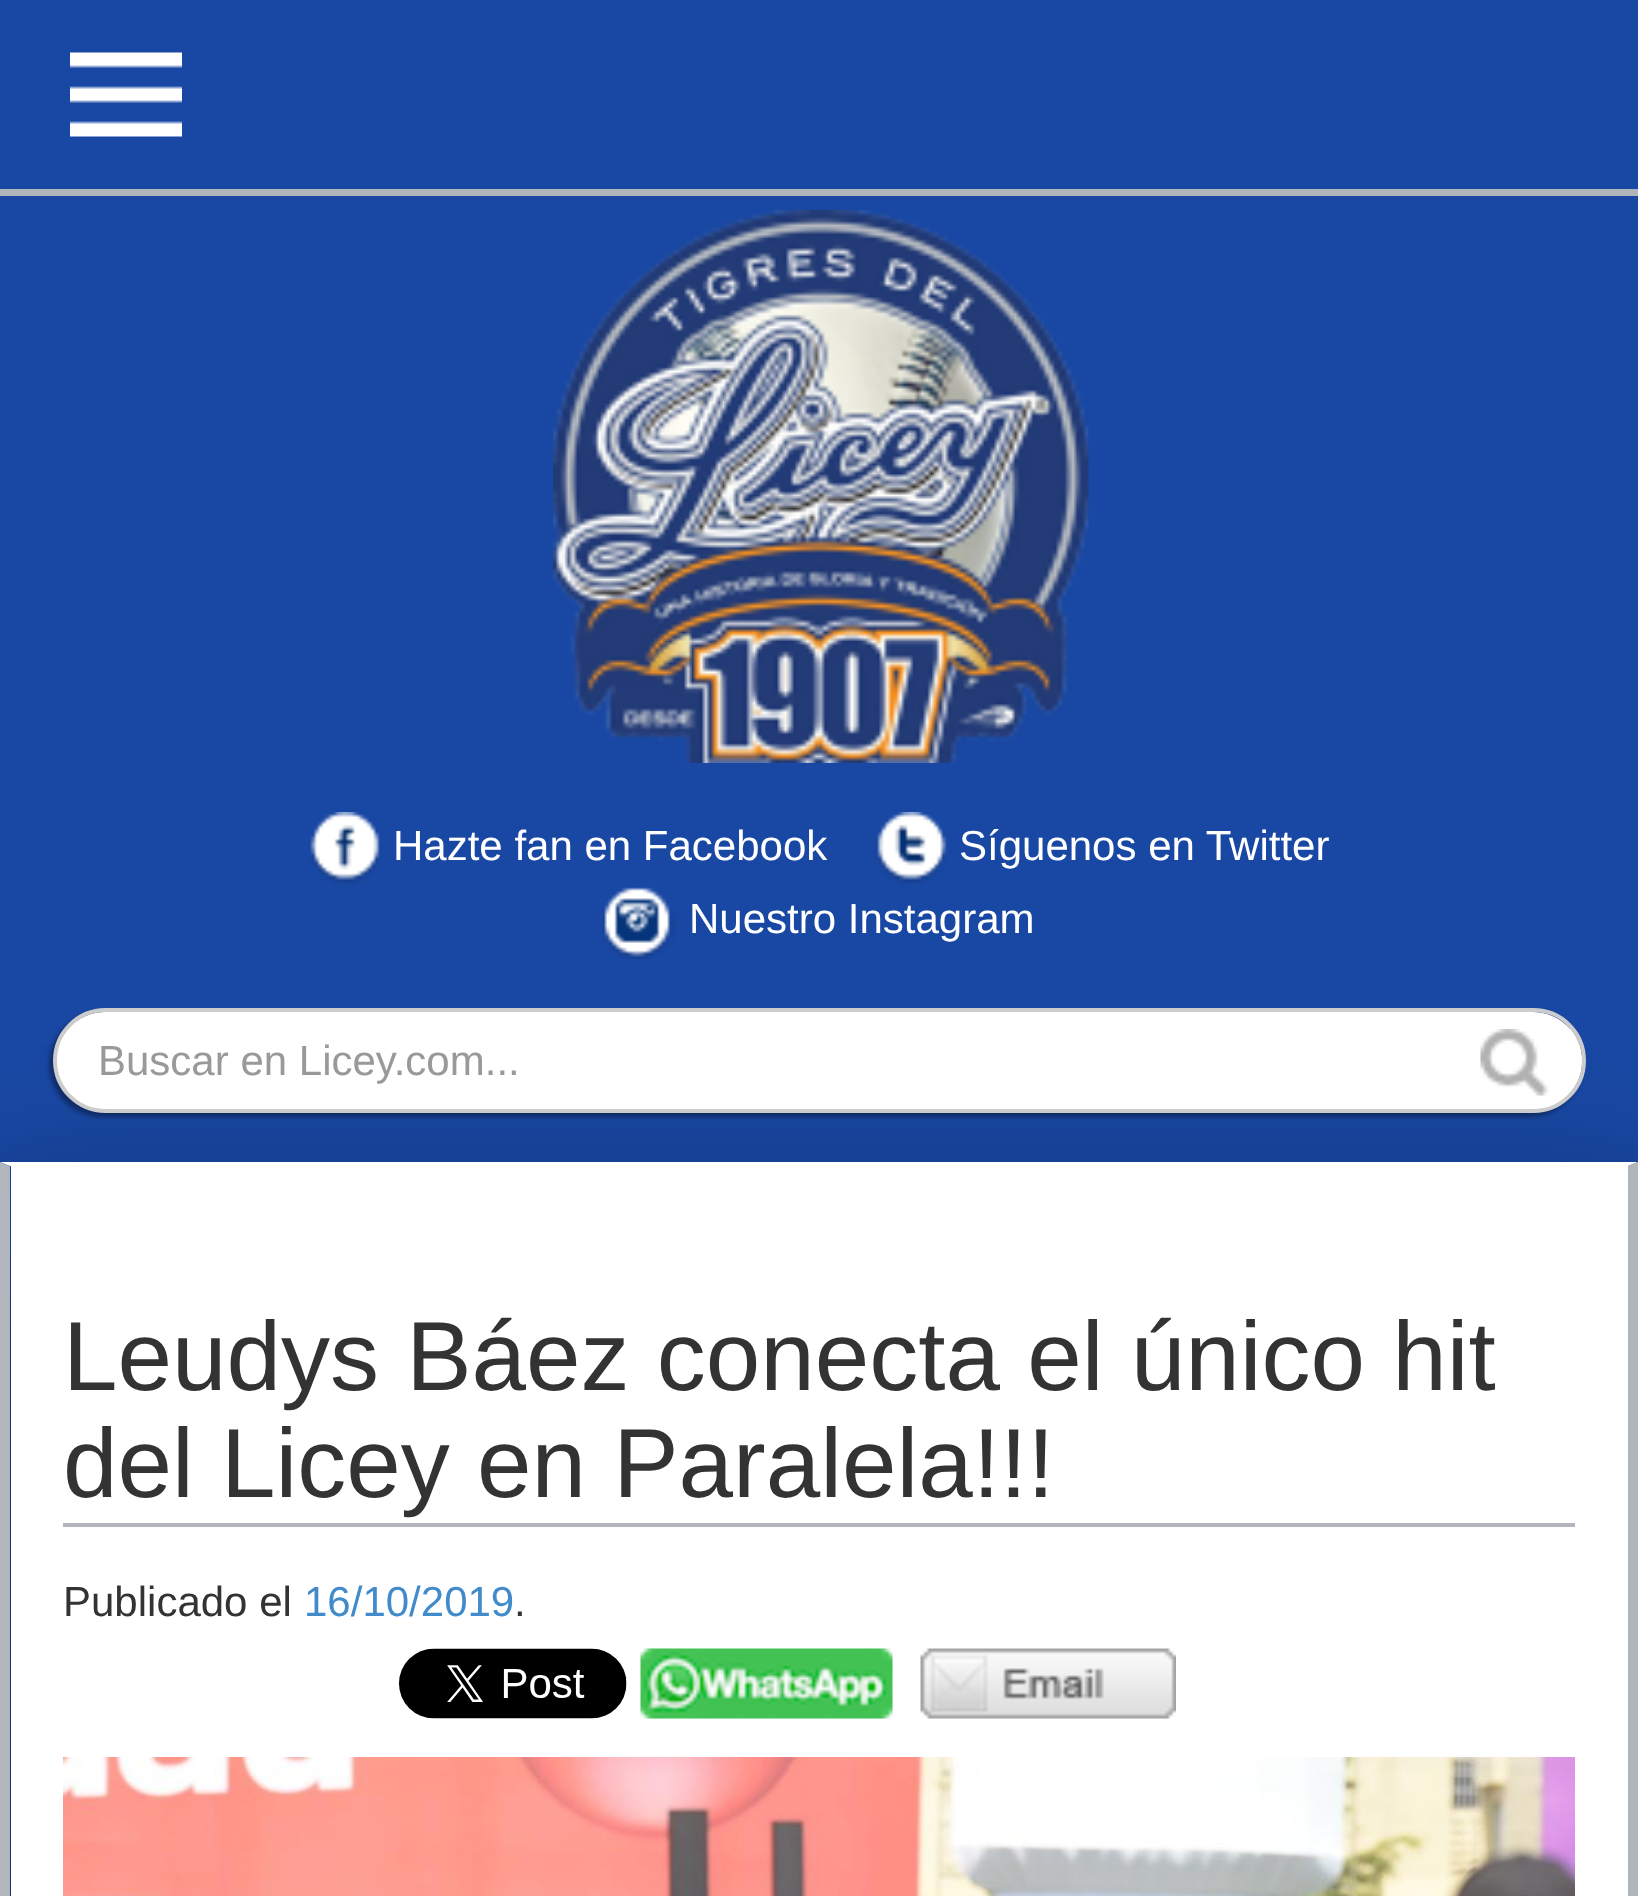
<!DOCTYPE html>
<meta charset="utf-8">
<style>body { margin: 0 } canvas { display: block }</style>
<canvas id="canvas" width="1638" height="1896"></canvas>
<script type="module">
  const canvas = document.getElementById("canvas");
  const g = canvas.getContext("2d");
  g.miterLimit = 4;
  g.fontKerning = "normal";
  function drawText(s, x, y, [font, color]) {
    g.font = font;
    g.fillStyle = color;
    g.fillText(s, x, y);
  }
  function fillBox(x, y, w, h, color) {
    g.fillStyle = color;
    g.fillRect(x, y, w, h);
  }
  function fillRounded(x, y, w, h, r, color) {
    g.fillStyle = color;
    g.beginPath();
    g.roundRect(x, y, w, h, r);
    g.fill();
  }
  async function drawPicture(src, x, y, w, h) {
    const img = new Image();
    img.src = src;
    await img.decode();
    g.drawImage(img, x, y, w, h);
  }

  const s1 = ["42px Liberation Sans", "#FFFFFF"];
  const s2 = ["42px Liberation Sans", "#999999"];
  const s3 = ["98px Liberation Sans", "#333333"];
  const s4 = ["42px Liberation Sans", "#333333"];
  const s5 = ["42px Liberation Sans", "#428BCA"];

  fillBox(0, 0, 1638, 1896, "#1948A4");
  fillBox(0, 189, 1638, 7, "#B1B6BC");
  await drawPicture("pic1.png", 70, 52, 112, 85);
  await drawPicture("pic2.png", 553, 210, 536, 553);
  await drawPicture("pic3.png", 310, 812, 71, 73);
  drawText("Hazte fan en Facebook", 393, 860, s1);
  await drawPicture("pic4.png", 875, 812, 72, 73);
  drawText("Síguenos en Twitter", 959, 860, s1);
  await drawPicture("pic5.png", 602, 887, 74, 72);
  drawText("Nuestro Instagram", 689, 933, s1);
  g.fillStyle = "rgba(0, 0, 0, 0.35)";
  g.filter = "blur(2px)";
  g.beginPath();
  g.roundRect(49, 1012, 1533, 105, 52.5);
  g.fill();
  g.filter = "none";
  g.filter = "blur(70px)";
  g.beginPath();
  g.rect(-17, 1197, 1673, 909);
  g.fill();
  g.filter = "none";
  fillRounded(56, 1012, 1526, 98, 49, "#FFFFFF");
  await drawPicture("pic6.png", 1480, 1029, 102, 67);
  g.beginPath();
  g.roundRect(55, 1010, 1529, 101, 50.5);
  g.strokeStyle = "#CCCCCC";
  g.lineWidth = 4;
  g.stroke();
  drawText("Buscar en Licey.com...", 98, 1075, s2);
  g.fillStyle = "#FFFFFF";
  g.beginPath();
  g.moveTo(0, 1162);
  g.lineTo(1638, 1162);
  g.lineTo(1628, 1166);
  g.lineTo(10, 1166);
  g.closePath();
  g.fill();
  g.fillStyle = "#B1B6BC";
  g.beginPath();
  g.moveTo(1638, 1162);
  g.lineTo(1638, 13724);
  g.lineTo(1628, 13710);
  g.lineTo(1628, 1166);
  g.closePath();
  g.fill();
  g.beginPath();
  g.moveTo(0, 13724);
  g.lineTo(0, 1162);
  g.lineTo(10, 1166);
  g.lineTo(10, 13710);
  g.closePath();
  g.fill();
  fillBox(11, 1166, 1617, 730, "#FFFFFF");
  fillBox(63, 1523, 1512, 4, "#B1B6BC");
  drawText("Leudys Báez conecta el único hit", 63, 1390, s3);
  drawText("del Licey en Paralela!!!", 63, 1497, s3);
  drawText("Publicado el", 63, 1616, s4);
  drawText("16/10/2019", 304, 1616, s5);
  drawText(".", 514, 1616, s4);
  await drawPicture("pic7.png", 399, 1648, 228, 71);
  await drawPicture("pic8.png", 640, 1648, 253, 71);
  await drawPicture("pic9.png", 920, 1648, 256, 71);
  await drawPicture("pic10.png", 63, 1757, 1512, 139);
</script>
